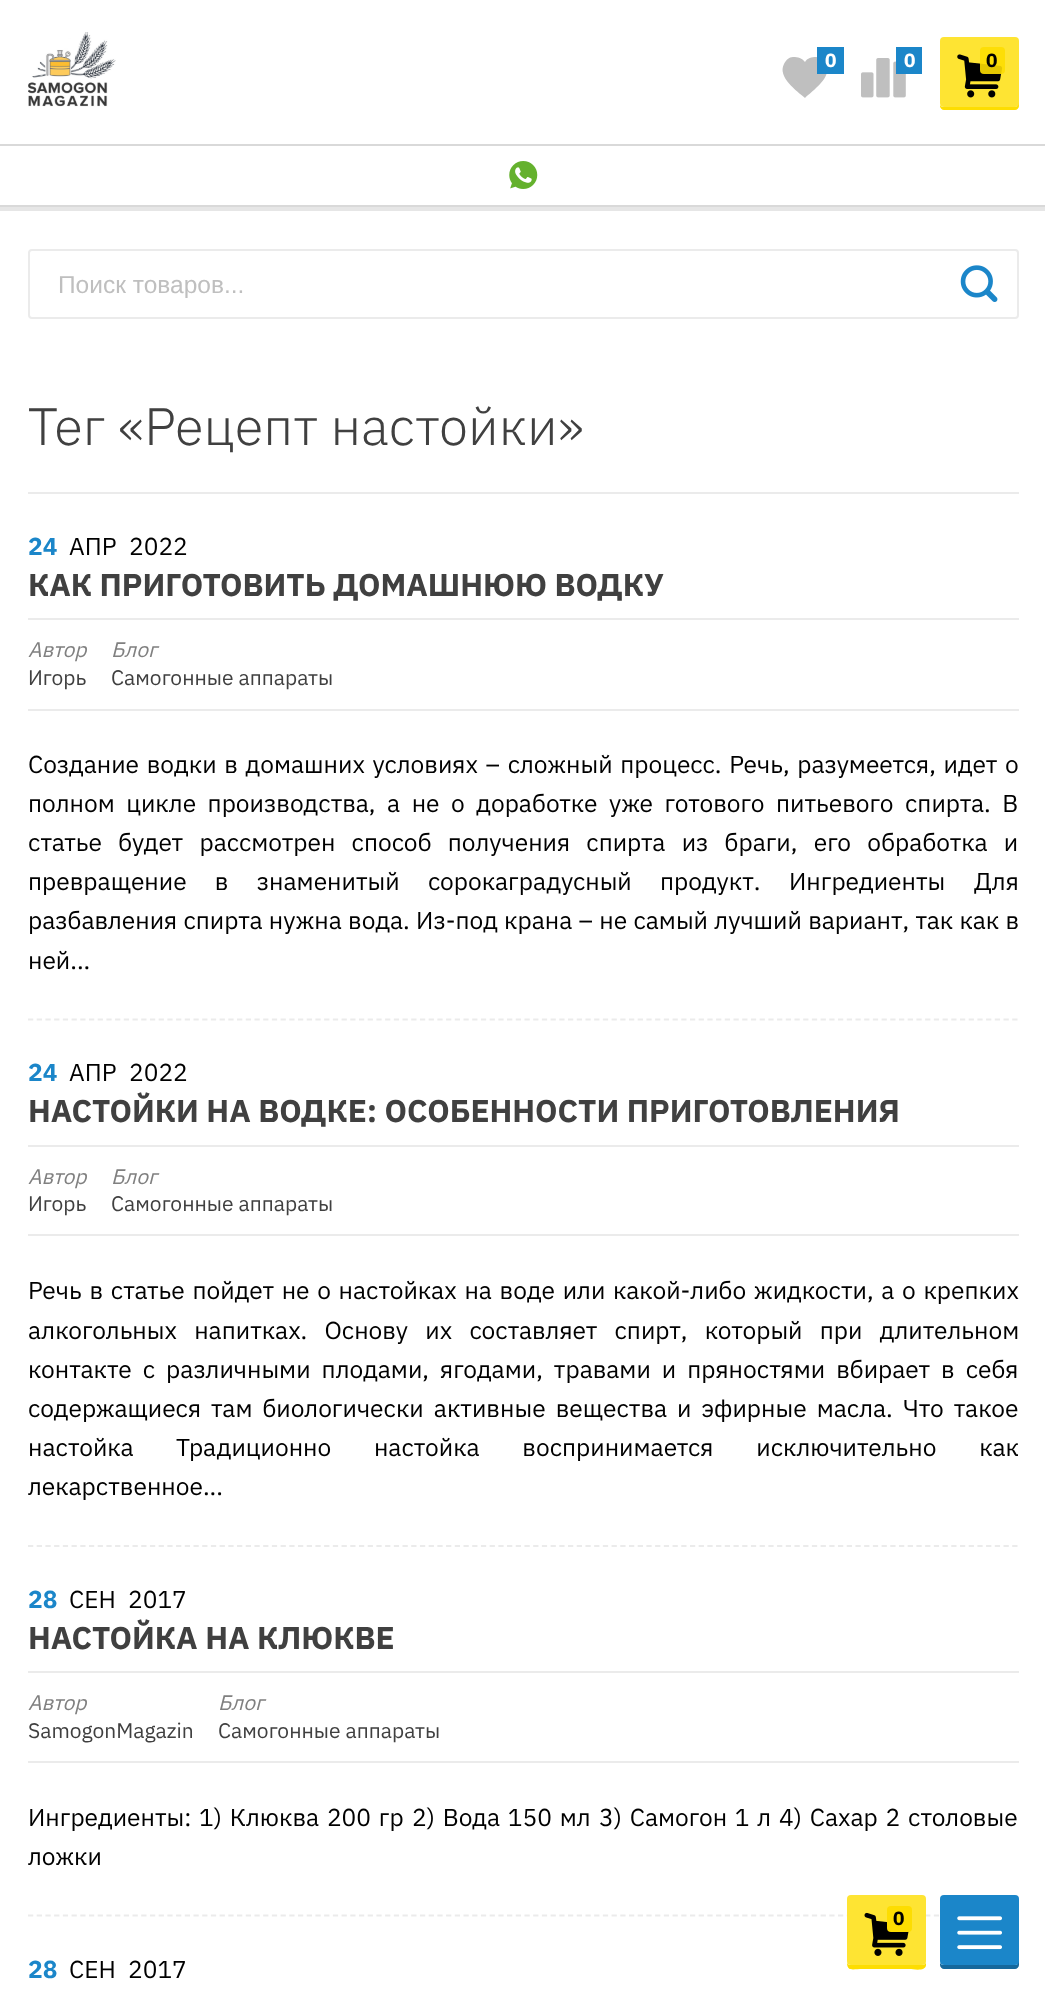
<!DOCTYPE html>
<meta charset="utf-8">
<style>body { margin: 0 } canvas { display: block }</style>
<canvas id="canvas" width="1045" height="1991"></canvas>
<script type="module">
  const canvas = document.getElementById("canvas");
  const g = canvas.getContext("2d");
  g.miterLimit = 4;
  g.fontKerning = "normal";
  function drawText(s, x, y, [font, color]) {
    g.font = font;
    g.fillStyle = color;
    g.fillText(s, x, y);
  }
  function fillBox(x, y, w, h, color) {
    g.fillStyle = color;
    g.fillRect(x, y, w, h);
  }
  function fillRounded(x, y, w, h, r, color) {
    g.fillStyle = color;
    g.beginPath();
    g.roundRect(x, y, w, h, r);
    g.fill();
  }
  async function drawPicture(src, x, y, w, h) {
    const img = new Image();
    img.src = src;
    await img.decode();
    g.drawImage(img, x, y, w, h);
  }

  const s1 = ["bold 19px IBM Plex Sans", "#FFFFFF"];
  const s2 = ["bold 19px IBM Plex Sans", "#000000"];
  const s3 = ["24.5px Liberation Sans", "#BFBFBF"];
  const s4 = ["300 52.5px IBM Plex Sans", "#404040"];
  const s5 = ["bold 24.5px IBM Plex Sans", "#1B86C9"];
  const s6 = ["24.5px IBM Plex Sans", "#000000"];
  const s7 = ["bold 31.5px IBM Plex Sans", "#404040"];
  const s8 = ["italic 21px IBM Plex Sans", "#808080"];
  const s9 = ["21px IBM Plex Sans", "#404040"];

  fillBox(0, 0, 1045, 1991, "#FFFFFF");
  fillBox(0, 207, 1045, 4, "#E6E6E6");
  await drawPicture("pic1.png", 28, 32, 88, 75);
  g.fillStyle = "#BFBFBF";
  g.beginPath();
  g.moveTo(805, 98);
  g.bezierCurveTo(797, 91, 777, 77, 784, 64);
  g.bezierCurveTo(786, 60, 789, 57, 793, 57);
  g.bezierCurveTo(798, 57, 802, 58, 805, 62);
  g.bezierCurveTo(807, 58, 812, 57, 816, 57);
  g.bezierCurveTo(820, 57, 824, 60, 826, 64);
  g.bezierCurveTo(833, 77, 812, 91, 805, 98);
  g.closePath();
  g.fill();
  fillBox(817, 47, 27, 27, "#1B86C9");
  drawText("0", 825, 67, s1);
  await drawPicture("pic2.png", 861, 58, 45, 40);
  fillBox(896, 47, 26, 27, "#1B86C9");
  drawText("0", 904, 67, s1);
  g.fillStyle = "#FDDD01";
  g.beginPath();
  g.moveTo(940, 105);
  g.lineTo(940, 106);
  g.bezierCurveTo(940, 108, 942, 110, 944, 110);
  g.lineTo(1015, 110);
  g.bezierCurveTo(1017, 110, 1019, 108, 1019, 106);
  g.lineTo(1019, 44);
  g.lineTo(1018, 42);
  g.lineTo(1018, 103);
  g.bezierCurveTo(1018, 105, 1017, 107, 1015, 107);
  g.lineTo(943, 107);
  g.bezierCurveTo(942, 107, 941, 106, 940, 105);
  g.closePath();
  g.fill();
  fillRounded(940, 37, 79, 70, 4, "#FEE433");
  await drawPicture("pic3.png", 957, 54, 46, 44);
  fillRounded(980, 47, 25, 27, 4, "rgba(253, 221, 1, 0.9)");
  drawText("0", 986, 67, s2);
  fillBox(0, 144, 1045, 2, "#D9D9D9");
  fillBox(0, 205, 1045, 2, "#D9D9D9");
  await drawPicture("pic4.png", 509, 161, 29, 28);
  g.beginPath();
  g.roundRect(29, 250, 989, 68, 3);
  g.strokeStyle = "#EBEBEB";
  g.lineWidth = 2;
  g.stroke();
  drawText("Поиск товаров...", 58, 293, s3);
  await drawPicture("pic5.png", 960, 265, 38, 37);
  fillBox(28, 492, 991, 2, "#EBEBEB");
  drawText("Тег «Рецепт настойки»", 28, 445, s4);
  fillBox(28, 709, 991, 2, "#EBEBEB");
  drawText("24", 28, 555, s5);
  drawText("АПР", 69, 555, s6);
  drawText("2022", 129, 555, s6);
  fillBox(28, 618, 991, 2, "#EBEBEB");
  drawText("КАК ПРИГОТОВИТЬ ДОМАШНЮЮ ВОДКУ", 28, 596, s7);
  drawText("Автор", 28, 657, s8);
  drawText("Игорь", 28, 685, s9);
  drawText("Блог", 111, 657, s8);
  drawText("Самогонные аппараты", 111, 685, s9);
  g.wordSpacing = "1.9px";
  drawText("Создание водки в домашних условиях – сложный процесс. Речь, разумеется, идет о", 28, 773, s6);
  g.wordSpacing = "5.75px";
  drawText("полном цикле производства, а не о доработке уже готового питьевого спирта. В", 28, 812, s6);
  g.wordSpacing = "10.5px";
  drawText("статье будет рассмотрен способ получения спирта из браги, его обработка и", 28, 851, s6);
  g.wordSpacing = "22.5px";
  drawText("превращение в знаменитый сорокаградусный продукт.", 28, 890, s6);
  g.wordSpacing = "0px";
  drawText("Ингредиенты", 789, 890, s6);
  drawText("Для", 974, 890, s6);
  g.wordSpacing = "0.5px";
  drawText("разбавления спирта нужна вода. Из-под крана – не самый лучший вариант, так как в", 28, 929, s6);
  g.wordSpacing = "0px";
  drawText("ней...", 28, 969, s6);
  g.beginPath();
  g.moveTo(28, 1019.5);
  g.lineTo(1018.5, 1019.5);
  g.lineWidth = 1.8;
  g.setLineDash([5.25, 3.46]);
  g.stroke();
  fillBox(28, 1234, 991, 2, "#EBEBEB");
  drawText("24", 28, 1081, s5);
  drawText("АПР", 69, 1081, s6);
  drawText("2022", 129, 1081, s6);
  fillBox(28, 1145, 991, 2, "#EBEBEB");
  drawText("НАСТОЙКИ НА ВОДКЕ: ОСОБЕННОСТИ ПРИГОТОВЛЕНИЯ", 28, 1122, s7);
  drawText("Автор", 28, 1184, s8);
  drawText("Игорь", 28, 1211, s9);
  drawText("Блог", 111, 1184, s8);
  drawText("Самогонные аппараты", 111, 1211, s9);
  g.wordSpacing = "1.9px";
  drawText("Речь в статье пойдет не о настойках на воде или какой-либо жидкости, а о крепких", 28, 1299, s6);
  g.wordSpacing = "11.5px";
  drawText("алкогольных напитках. Основу их составляет спирт, который при длительном", 28, 1339, s6);
  g.wordSpacing = "5.25px";
  drawText("контакте с различными плодами, ягодами, травами и пряностями вбирает в себя", 28, 1378, s6);
  g.wordSpacing = "4.25px";
  drawText("содержащиеся там биологически активные вещества и эфирные масла.", 28, 1417, s6);
  drawText("Что такое", 903, 1417, s6);
  g.wordSpacing = "0px";
  drawText("настойка", 28, 1456, s6);
  g.wordSpacing = "37px";
  drawText("Традиционно настойка воспринимается исключительно как", 176, 1456, s6);
  g.wordSpacing = "0px";
  drawText("лекарственное...", 28, 1495, s6);
  g.beginPath();
  g.moveTo(28, 1546);
  g.lineTo(1018.5, 1546);
  g.stroke();
  fillBox(28, 1761, 991, 2, "#EBEBEB");
  drawText("28", 28, 1608, s5);
  drawText("СЕН", 69, 1608, s6);
  drawText("2017", 128, 1608, s6);
  fillBox(28, 1671, 991, 2, "#EBEBEB");
  drawText("НАСТОЙКА НА КЛЮКВЕ", 28, 1649, s7);
  drawText("Автор", 28, 1710, s8);
  drawText("SamogonMagazin", 28, 1738, s9);
  drawText("Блог", 218, 1710, s8);
  drawText("Самогонные аппараты", 218, 1738, s9);
  drawText("Ингредиенты:", 28, 1826, s6);
  g.wordSpacing = "2px";
  drawText("1) Клюква 200 гр", 199, 1826, s6);
  drawText("2) Вода 150 мл", 412, 1826, s6);
  drawText("3) Самогон 1 л", 599, 1826, s6);
  drawText("4) Сахар 2 столовые", 779, 1826, s6);
  g.wordSpacing = "0px";
  drawText("ложки", 28, 1865, s6);
  g.beginPath();
  g.moveTo(28, 1915.5);
  g.lineTo(1018.5, 1915.5);
  g.stroke();
  drawText("28", 28, 1978, s5);
  drawText("СЕН", 69, 1978, s6);
  drawText("2017", 128, 1978, s6);
  g.fillStyle = "#FDDD01";
  g.beginPath();
  g.moveTo(847, 1962);
  g.bezierCurveTo(847, 1972, 852, 1969, 863, 1969);
  g.lineTo(910, 1969);
  g.bezierCurveTo(912, 1969, 926, 1972, 926, 1965);
  g.lineTo(926, 1902);
  g.lineTo(926, 1962);
  g.bezierCurveTo(926, 1964, 924, 1965, 922, 1965);
  g.lineTo(850, 1965);
  g.bezierCurveTo(849, 1965, 847, 1964, 847, 1962);
  g.closePath();
  g.fill();
  fillRounded(847, 1895, 79, 70, 4, "#FEE433");
  await drawPicture("pic6.png", 864, 1912, 45, 44);
  fillRounded(887, 1906, 25, 26, 4, "#FDDD01");
  drawText("0", 893, 1925, s2);
  g.fillStyle = "#15689C";
  g.beginPath();
  g.moveTo(940, 1963);
  g.lineTo(940, 1965);
  g.bezierCurveTo(940, 1967, 942, 1969, 944, 1969);
  g.lineTo(1015, 1969);
  g.bezierCurveTo(1017, 1969, 1019, 1967, 1019, 1965);
  g.lineTo(1019, 1903);
  g.lineTo(1018, 1901);
  g.lineTo(1018, 1962);
  g.bezierCurveTo(1018, 1964, 1017, 1965, 1015, 1965);
  g.lineTo(943, 1965);
  g.bezierCurveTo(942, 1965, 941, 1964, 940, 1963);
  g.closePath();
  g.fill();
  fillRounded(940, 1895, 79, 70, 4, "#1B86C9");
  await drawPicture("pic7.png", 957, 1916, 45, 34);
</script>
